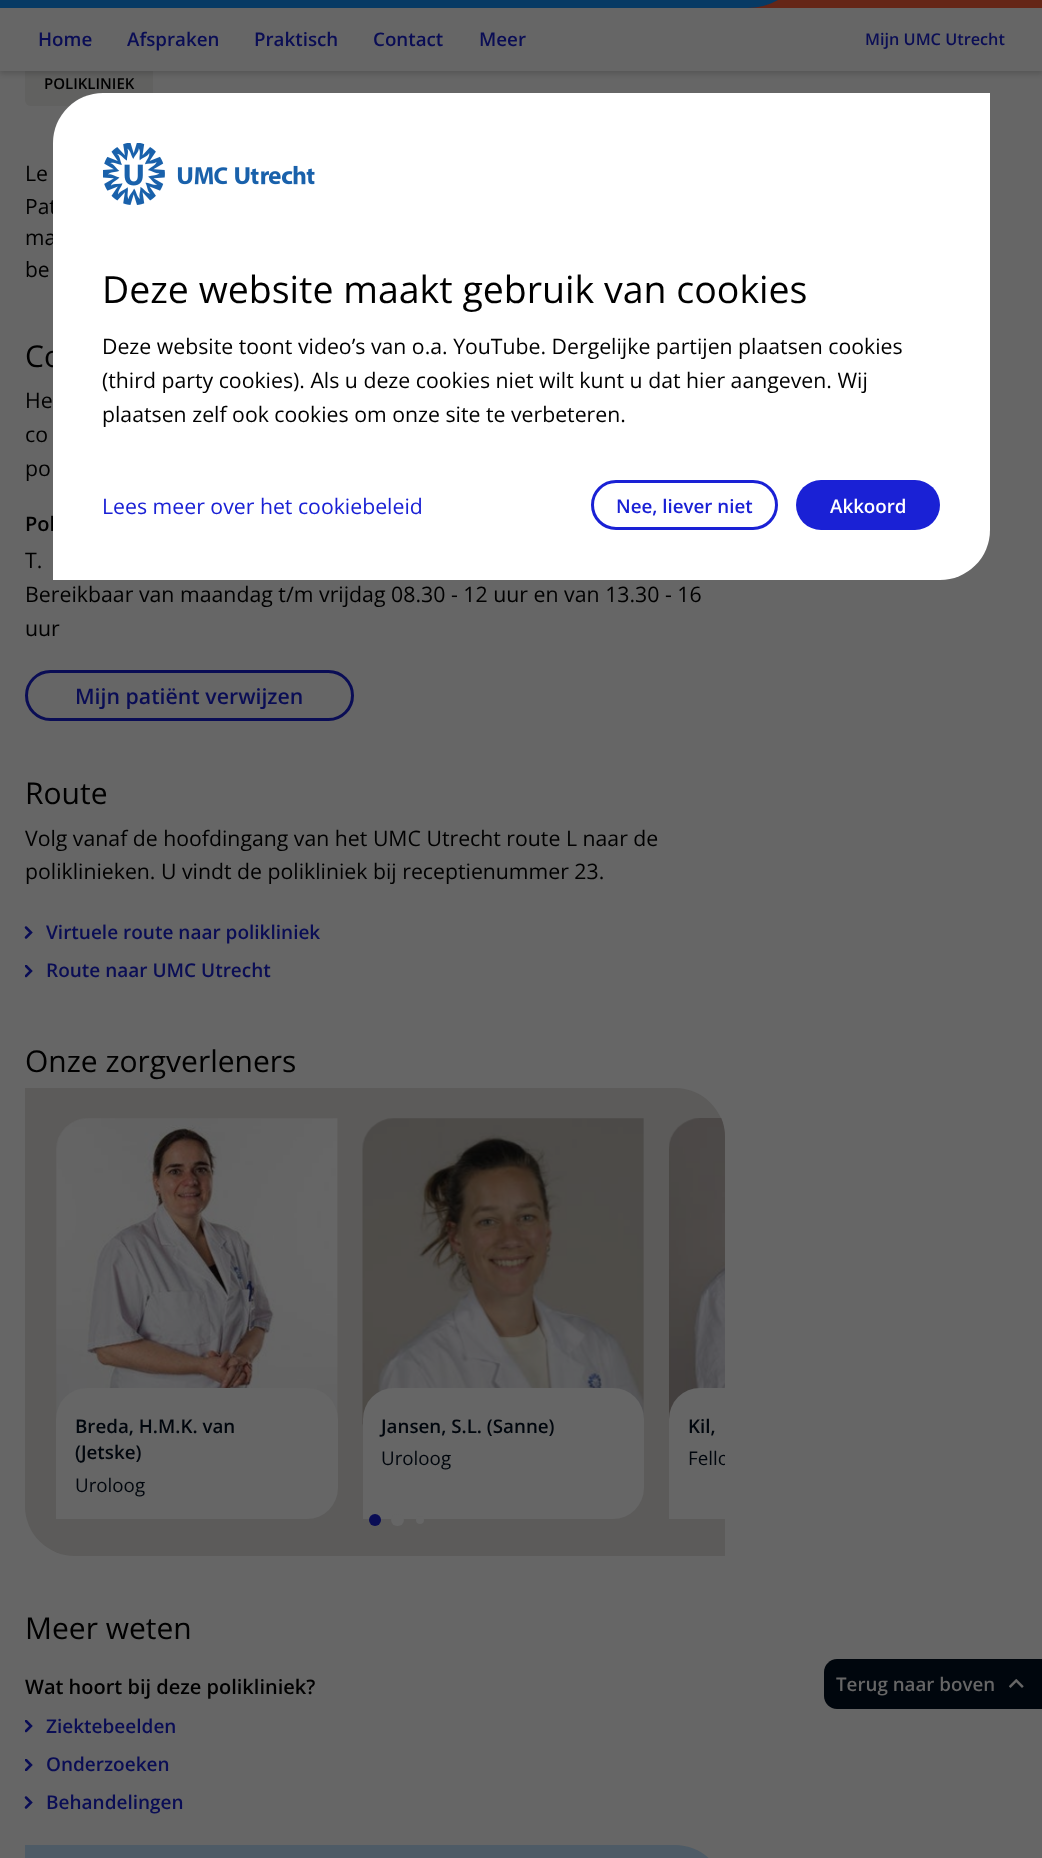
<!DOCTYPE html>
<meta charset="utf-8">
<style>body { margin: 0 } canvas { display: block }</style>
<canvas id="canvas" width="1042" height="1858"></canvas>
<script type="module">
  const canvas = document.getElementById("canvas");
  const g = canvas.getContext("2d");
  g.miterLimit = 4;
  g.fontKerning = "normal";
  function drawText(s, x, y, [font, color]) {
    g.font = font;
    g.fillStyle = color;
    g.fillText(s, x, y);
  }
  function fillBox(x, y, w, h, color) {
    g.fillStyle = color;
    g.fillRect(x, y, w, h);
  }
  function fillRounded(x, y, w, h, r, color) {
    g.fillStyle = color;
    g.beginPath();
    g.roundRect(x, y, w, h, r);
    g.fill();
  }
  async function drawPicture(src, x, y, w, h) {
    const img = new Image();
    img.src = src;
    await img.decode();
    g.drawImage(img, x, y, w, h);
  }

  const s1 = ["600 18.75px Open Sans", "#0A0D55"];
  const s2 = ["600 16.25px Open Sans", "#0A0D55"];
  const s3 = ["600 15px Open Sans", "#000000"];
  const s4 = ["21.25px Open Sans", "#000000"];
  const s5 = ["21px Open Sans", "#000000"];
  const s6 = ["30px Open Sans", "#000000"];
  const s7 = ["21.3px Open Sans", "#000000"];
  const s8 = ["600 20px Open Sans", "#000000"];
  const s9 = ["600 21.3px Open Sans", "#0A0D55"];
  const s10 = ["600 19px Open Sans", "#0A0D55"];
  const s11 = ["600 18.75px Open Sans", "#00060D"];
  const s12 = ["18.75px Open Sans", "#00060D"];
  const s13 = ["37.5px Open Sans", "#000000"];
  const s14 = ["21.25px Open Sans", "#1A21D5"];
  const s15 = ["600 18.75px Open Sans", "#1A21D5"];
  const s16 = ["600 18.75px Open Sans", "#FFFFFF"];
  const s17 = ["600 18.75px Open Sans", "#666666"];

  fillBox(0, 0, 1042, 1858, "#666666");
  fillRounded(25, 60, 128, 46, 6, "#616160");
  g.fillStyle = "rgba(0, 0, 0, 0.15)";
  g.filter = "blur(2.5px)";
  g.beginPath();
  g.rect(0, -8, 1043, 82);
  g.fill();
  g.filter = "none";
  fillBox(748, 0, 294, 8, "#652617");
  g.fillStyle = "#073A64";
  g.beginPath();
  g.moveTo(0, -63);
  g.lineTo(810, -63);
  g.lineTo(810, -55);
  g.bezierCurveTo(810, -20, 782, 8, 747, 8);
  g.lineTo(0, 8);
  g.closePath();
  g.fill();
  fillBox(0, 8, 1042, 63, "#666666");
  drawText("Home", 38, 46, s1);
  drawText("Afspraken", 127, 46, s1);
  drawText("Praktisch", 254, 46, s1);
  drawText("Contact", 373, 46, s1);
  drawText("Meer", 479, 46, s1);
  drawText("Mijn UMC Utrecht", 865, 45, s2);
  drawText("POLIKLINIEK", 44, 89, s3);
  drawText("Le", 25, 181, s4);
  drawText("Pat", 25, 214, s5);
  drawText("ma", 25, 245, s5);
  drawText("be", 25, 277, s5);
  drawText("Co", 25, 367, s6);
  drawText("He", 25, 408, s7);
  drawText("co", 25, 442, s7);
  drawText("po", 25, 476, s7);
  drawText("Pol", 25, 531, s8);
  drawText("T.", 25, 568, s7);
  drawText("Bereikbaar van maandag t/m vrijdag 08.30 - 12 uur en van 13.30 - 16", 25, 602, s7);
  drawText("uur", 25, 636, s7);
  g.beginPath();
  g.roundRect(26.5, 671.5, 326, 48, 24);
  g.strokeStyle = "#0A0D55";
  g.lineWidth = 3;
  g.stroke();
  drawText("Mijn patiënt verwijzen", 75, 704, s9);
  drawText("Route", 25, 804, s6);
  drawText("Volg vanaf de hoofdingang van het UMC Utrecht route L naar de", 25, 846, s4);
  drawText("poliklinieken. U vindt de polikliniek bij receptienummer 23.", 25, 879, s4);
  g.beginPath();
  g.moveTo(26, 937.5);
  g.lineTo(31, 932.5);
  g.lineTo(26, 927.5);
  g.lineWidth = 2.5;
  g.lineCap = "round";
  g.stroke();
  drawText("Virtuele route naar polikliniek", 46, 939, s10);
  g.save();
  g.beginPath();
  g.rect(25, 965, 9, 13);
  g.clip();
  g.beginPath();
  g.moveTo(26, 976);
  g.lineTo(31, 971);
  g.lineTo(26, 966);
  g.stroke();
  g.restore();
  drawText("Route naar UMC Utrecht", 46, 977, s10);
  drawText("Onze zorgverleners", 25, 1072, s6);
  g.fillStyle = "#5C5B5A";
  g.beginPath();
  g.roundRect(25, 1088, 700, 468, [0, 50, 0, 50]);
  g.fill();
  await drawPicture("pic1.png", 56, 1118, 282, 301);
  g.fillStyle = "#666666";
  g.beginPath();
  g.roundRect(56, 1388, 282, 131, [31, 31, 31, 0]);
  g.fill();
  drawText("Breda, H.M.K. van", 75, 1433, s11);
  drawText("(Jetske)", 75, 1459, s11);
  drawText("Uroloog", 75, 1492, s12);
  await drawPicture("pic2.png", 362, 1118, 282, 308);
  g.fillStyle = "#666666";
  g.beginPath();
  g.roundRect(363, 1388, 281, 131, [31, 31, 31, 0]);
  g.fill();
  drawText("Jansen, S.L. (Sanne)", 381, 1433, s11);
  drawText("Uroloog", 381, 1465, s12);
  await drawPicture("pic3.png", 669, 1118, 56, 301);
  g.fillStyle = "#666666";
  g.beginPath();
  g.roundRect(669, 1388, 56, 131, [31, 0, 0, 0]);
  g.fill();
  drawText("Kil,", 688, 1433, s11);
  g.save();
  g.beginPath();
  g.roundRect(25, 1088, 700, 468, [0, 50, 0, 50]);
  g.clip();
  drawText("Fello", 688, 1465, s12);
  g.restore();
  g.fillStyle = "#0A0D55";
  g.beginPath();
  g.arc(375, 1520, 6, 0, Math.PI * 2);
  g.fill();
  fillRounded(391, 1514, 13, 12, 6, "#666666");
  g.beginPath();
  g.arc(420, 1520, 4, 0, Math.PI * 2);
  g.fill();
  drawText("Meer weten", 25, 1639, s6);
  drawText("Wat hoort bij deze polikliniek?", 25, 1694, s8);
  g.save();
  g.beginPath();
  g.rect(25, 1720, 9, 13);
  g.clip();
  g.beginPath();
  g.moveTo(26, 1731);
  g.lineTo(31, 1726);
  g.lineTo(26, 1721);
  g.stroke();
  g.restore();
  drawText("Ziektebeelden", 46, 1733, s10);
  g.save();
  g.beginPath();
  g.rect(25, 1759, 9, 12);
  g.clip();
  g.beginPath();
  g.moveTo(26, 1770);
  g.lineTo(31, 1765);
  g.lineTo(26, 1760);
  g.stroke();
  g.restore();
  drawText("Onderzoeken", 46, 1771, s10);
  g.beginPath();
  g.moveTo(26, 1807.5);
  g.lineTo(31, 1802.5);
  g.lineTo(26, 1797.5);
  g.stroke();
  drawText("Behandelingen", 46, 1809, s10);
  g.fillStyle = "#4E5B66";
  g.beginPath();
  g.moveTo(25, 1845);
  g.lineTo(675, 1845);
  g.bezierCurveTo(702.5, 1845, 725, 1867.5, 725, 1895);
  g.lineTo(725, 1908);
  g.lineTo(75, 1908);
  g.bezierCurveTo(47.5, 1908, 25, 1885.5, 25, 1858);
  g.closePath();
  g.fill();
  g.fillStyle = "#FFFFFF";
  g.beginPath();
  g.roundRect(53, 93, 937, 487, [50, 0, 50, 0]);
  g.fill();
  await drawPicture("pic4.png", 103, 143, 212, 62);
  drawText("Deze website maakt gebruik van cookies", 102, 303, s13);
  drawText("Deze website toont video’s van o.a. YouTube. Dergelijke partijen plaatsen cookies", 102, 354, s4);
  drawText("(third party cookies). Als u deze cookies niet wilt kunt u dat hier aangeven. Wij", 102, 388, s4);
  drawText("plaatsen zelf ook cookies om onze site te verbeteren.", 102, 422, s4);
  drawText("Lees meer over het cookiebeleid", 102, 514, s14);
  g.beginPath();
  g.roundRect(592.5, 481.5, 184, 47, 23.5);
  g.strokeStyle = "#1A21D5";
  g.lineWidth = 3;
  g.stroke();
  drawText("Nee, liever niet", 616, 513, s15);
  fillRounded(796, 480, 144, 50, 25, "#1A21D5");
  drawText("Akkoord", 830, 513, s16);
  g.fillStyle = "#00060D";
  g.beginPath();
  g.moveTo(837, 1659);
  g.lineTo(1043, 1659);
  g.lineTo(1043, 1709);
  g.lineTo(837, 1709);
  g.bezierCurveTo(830, 1709, 824, 1703, 824, 1696);
  g.lineTo(824, 1672);
  g.bezierCurveTo(824, 1665, 830, 1659, 837, 1659);
  g.closePath();
  g.fill();
  await drawPicture("pic5.png", 1009, 1679, 15, 9);
  drawText("Terug naar boven", 836, 1691, s17);
</script>
